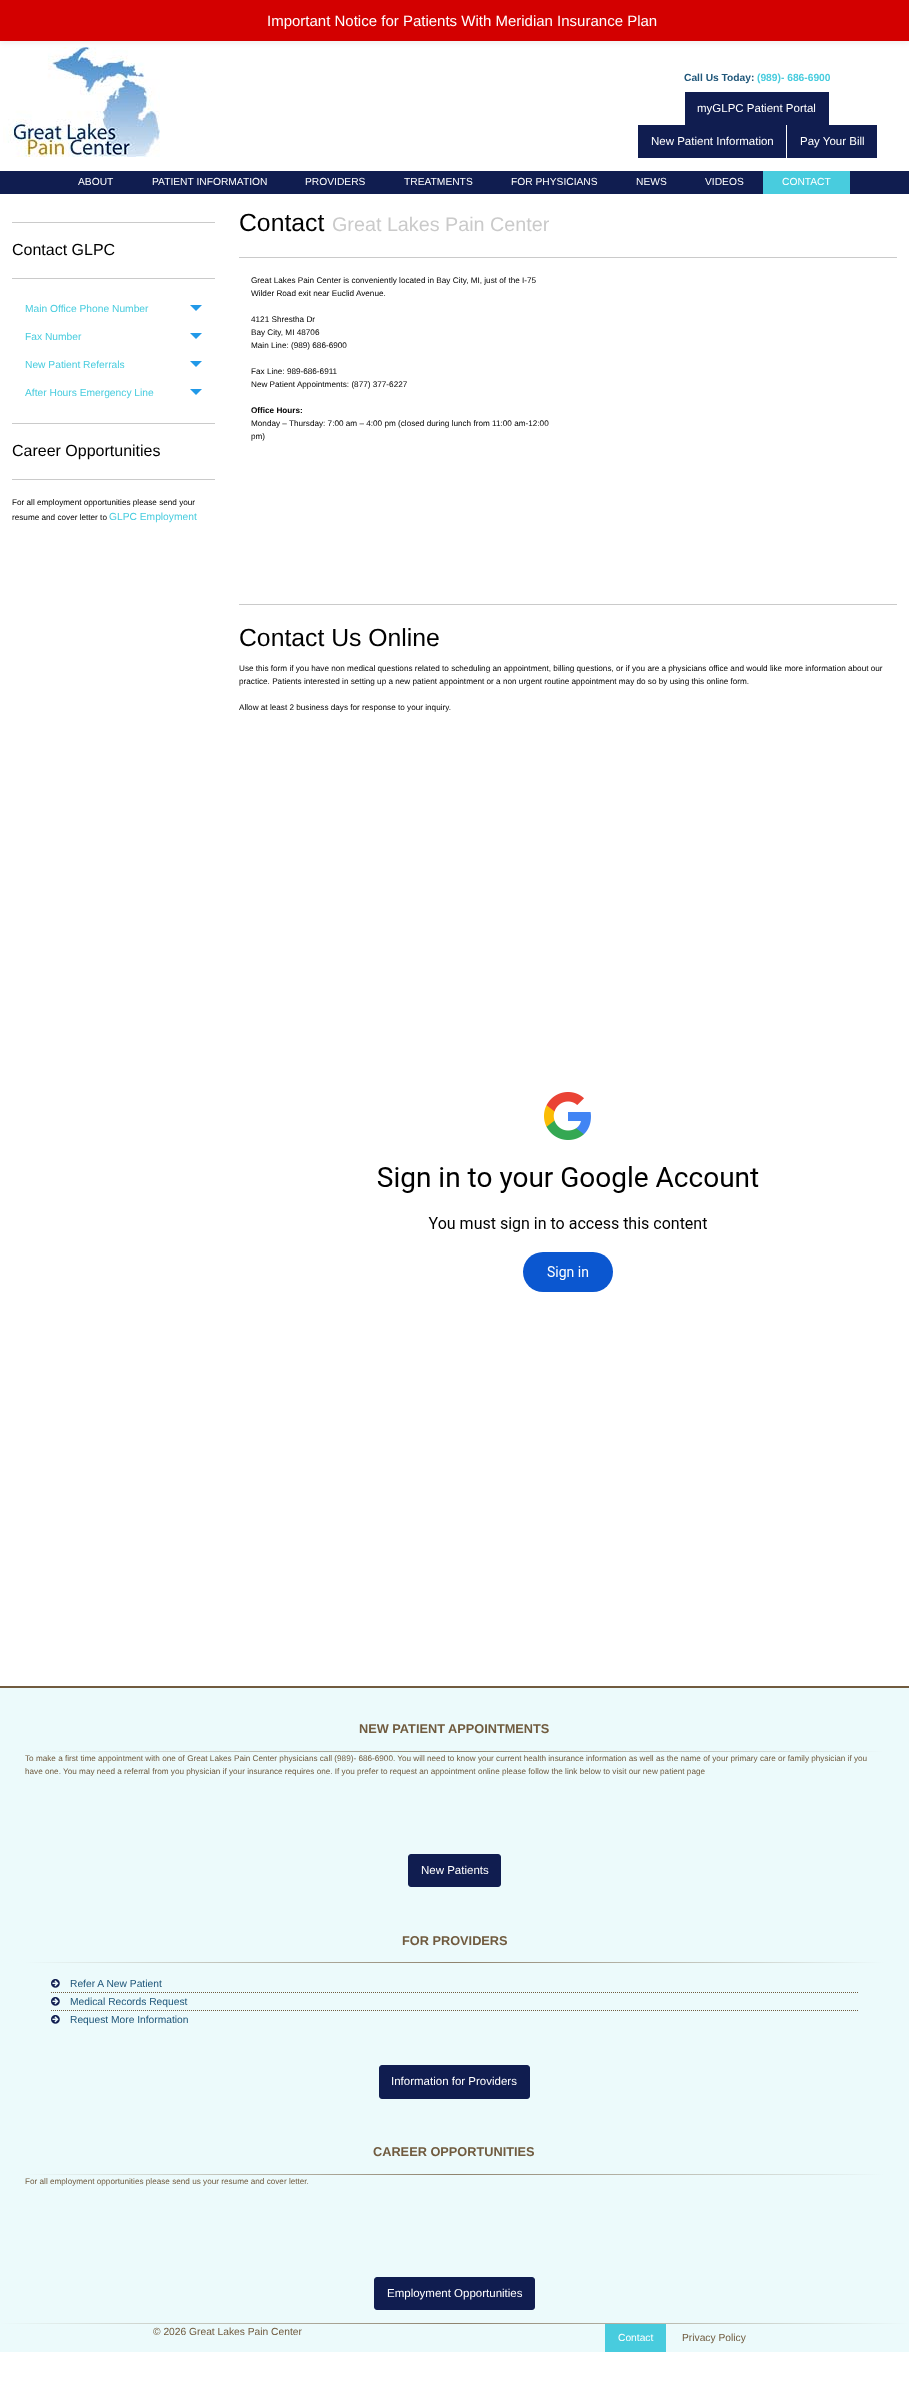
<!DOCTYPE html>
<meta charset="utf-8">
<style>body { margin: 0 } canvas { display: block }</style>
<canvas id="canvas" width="909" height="2405"></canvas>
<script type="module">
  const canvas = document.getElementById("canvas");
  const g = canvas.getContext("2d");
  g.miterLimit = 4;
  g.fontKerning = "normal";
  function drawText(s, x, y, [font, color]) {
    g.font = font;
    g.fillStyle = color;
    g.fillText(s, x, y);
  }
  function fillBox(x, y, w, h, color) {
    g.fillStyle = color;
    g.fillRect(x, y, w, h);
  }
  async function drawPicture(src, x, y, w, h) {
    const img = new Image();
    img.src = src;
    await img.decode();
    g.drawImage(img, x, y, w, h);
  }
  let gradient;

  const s1 = ["15px Liberation Sans", "#FFFFFF"];
  const s2 = ["bold 10.25px Liberation Sans", "#20577A"];
  const s3 = ["bold 10.25px Liberation Sans", "#48CCDE"];
  const s4 = ["11.5px Liberation Sans", "#FFFFFF"];
  const s5 = ["10.25px Liberation Sans", "#FFFFFF"];
  const s6 = ["16px Liberation Sans", "#000000"];
  const s7 = ["10.25px Liberation Sans", "#48CCDE"];
  const s8 = ["8.19px Liberation Sans", "#000000"];
  const s9 = ["24.75px Liberation Sans", "#000000"];
  const s10 = ["19.75px Liberation Sans", "#CACACA"];
  const s11 = ["bold 8.19px Liberation Sans", "#000000"];
  const s12 = ["bold 12.75px Liberation Sans", "#705B3F"];
  const s13 = ["8.19px Liberation Sans", "#705B3F"];
  const s14 = ["10.25px Liberation Sans", "#20577A"];
  const s15 = ["10.25px Liberation Sans", "#705B3F"];

  fillBox(0, 0, 909, 2405, "#FFFFFF");
  await drawPicture("pic1.png", 3, 47, 157, 110);
  g.fillStyle = "rgba(0, 0, 0, 0.05)";
  g.filter = "blur(2px)";
  g.beginPath();
  g.rect(0, 3, 909, 41);
  g.fill();
  g.filter = "none";
  fillBox(0, 0, 909, 41, "#D30000");
  drawText("Important Notice for Patients With Meridian Insurance Plan", 267, 26, s1);
  drawText("Call Us Today:", 684, 81, s2);
  drawText("(989)- 686-6900", 757, 81, s3);
  fillBox(685, 92, 144, 33, "#101D50");
  drawText("myGLPC Patient Portal", 697, 112, s4);
  fillBox(638, 125, 148, 33, "#101D50");
  drawText("New Patient Information", 651, 145, s4);
  fillBox(787, 125, 90, 33, "#101D50");
  drawText("Pay Your Bill", 800, 145, s4);
  fillBox(0, 171, 909, 23, "#101D50");
  drawText("ABOUT", 78, 185, s5);
  drawText("PATIENT INFORMATION", 152, 185, s5);
  drawText("PROVIDERS", 305, 185, s5);
  drawText("TREATMENTS", 404, 185, s5);
  drawText("FOR PHYSICIANS", 511, 185, s5);
  drawText("NEWS", 636, 185, s5);
  drawText("VIDEOS", 705, 185, s5);
  fillBox(763, 171, 87, 23, "#48CCDE");
  drawText("CONTACT", 782, 185, s5);
  fillBox(12, 222, 203, 1, "#CACACA");
  drawText("Contact GLPC", 12, 255, s6);
  fillBox(12, 278, 203, 1, "#CACACA");
  drawText("Main Office Phone Number", 25, 312, s7);
  g.fillStyle = "#2199E8";
  g.beginPath();
  g.moveTo(190, 305);
  g.lineTo(202, 305);
  g.lineTo(196, 311);
  g.closePath();
  g.fill();
  drawText("Fax Number", 25, 340, s7);
  g.fillStyle = "#2199E8";
  g.beginPath();
  g.moveTo(190, 333);
  g.lineTo(202, 333);
  g.lineTo(196, 339);
  g.closePath();
  g.fill();
  drawText("New Patient Referrals", 25, 368, s7);
  g.fillStyle = "#2199E8";
  g.beginPath();
  g.moveTo(190, 361);
  g.lineTo(202, 361);
  g.lineTo(196, 367);
  g.closePath();
  g.fill();
  drawText("After Hours Emergency Line", 25, 396, s7);
  g.fillStyle = "#2199E8";
  g.beginPath();
  g.moveTo(190, 389);
  g.lineTo(202, 389);
  g.lineTo(196, 395);
  g.closePath();
  g.fill();
  fillBox(12, 423, 203, 1, "#CACACA");
  drawText("Career Opportunities", 12, 456, s6);
  fillBox(12, 479, 203, 1, "#CACACA");
  drawText("For all employment opportunities please send your", 12, 505, s8);
  drawText("resume and cover letter to", 12, 520, s8);
  drawText("GLPC Employment", 109, 520, s7);
  drawText("Contact", 239, 231, s9);
  drawText("Great Lakes Pain Center", 332, 231, s10);
  fillBox(239, 257, 658, 1, "#CACACA");
  drawText("Great Lakes Pain Center is conveniently located in Bay City, MI, just of the I-75", 251, 283, s8);
  drawText("Wilder Road exit near Euclid Avenue.", 251, 296, s8);
  drawText("4121 Shrestha Dr", 251, 322, s8);
  drawText("Bay City, MI 48706", 251, 335, s8);
  drawText("Main Line: (989) 686-6900", 251, 348, s8);
  drawText("Fax Line: 989-686-6911", 251, 374, s8);
  drawText("New Patient Appointments: (877) 377-6227", 251, 387, s8);
  drawText("Office Hours:", 251, 413, s11);
  drawText("Monday – Thursday: 7:00 am – 4:00 pm (closed during lunch from 11:00 am-12:00", 251, 426, s8);
  drawText("pm)", 251, 439, s8);
  fillBox(239, 604, 658, 1, "#CACACA");
  drawText("Contact Us Online", 239, 646, s9);
  drawText("Use this form if you have non medical questions related to scheduling an appointment, billing questions, or if you are a physicians office and would like more information about our", 239, 671, s8);
  drawText("practice. Patients interested in setting up a new patient appointment or a non urgent routine appointment may do so by using this online form.", 239, 684, s8);
  drawText("Allow at least 2 business days for response to your inquiry.", 239, 710, s8);
  await drawPicture("pic2.png", 377, 1092, 382, 200);
  fillBox(0, 1688, 909, 635, "#ECFAFB");
  fillBox(0, 1686, 909, 2, "#705B3F");
  drawText("NEW PATIENT APPOINTMENTS", 359, 1733, s12);
  gradient = g.createLinearGradient(25, 1752, 884, 1752);
  gradient.addColorStop(0, "#ECFAFB");
  gradient.addColorStop(0.5, "#8F836E");
  gradient.addColorStop(1, "#ECFAFB");
  g.fillStyle = gradient;
  g.fillRect(25, 1751, 859, 1);
  drawText("To make a first time appointment with one of Great Lakes Pain Center physicians call (989)- 686-6900. You will need to know your current health insurance information as well as the name of your primary care or family physician if you", 25, 1761, s13);
  drawText("have one. You may need a referral from you physician if your insurance requires one. If you prefer to request an appointment online please follow the link below to visit our new patient page", 25, 1774, s13);
  g.fillStyle = "#101D50";
  g.beginPath();
  g.roundRect(408.5, 1854.5, 92, 32, 2.5);
  g.fill();
  g.strokeStyle = "#101D50";
  g.stroke();
  drawText("New Patients", 421, 1874, s4);
  drawText("FOR PROVIDERS", 402, 1945, s12);
  gradient = g.createLinearGradient(25, 1963, 884, 1963);
  gradient.addColorStop(0, "#ECFAFB");
  gradient.addColorStop(0.5, "#8F836E");
  gradient.addColorStop(1, "#ECFAFB");
  g.fillStyle = gradient;
  g.fillRect(25, 1962, 859, 1);
  await drawPicture("pic3.png", 51, 1979, 9, 9);
  drawText("Refer A New Patient", 70, 1987, s14);
  g.beginPath();
  g.moveTo(51, 1992.5);
  g.lineTo(859, 1992.5);
  g.strokeStyle = "#705B3F";
  g.setLineDash([1, 1]);
  g.stroke();
  await drawPicture("pic3.png", 51, 1997, 9, 9);
  drawText("Medical Records Request", 70, 2005, s14);
  g.beginPath();
  g.moveTo(51, 2010.5);
  g.lineTo(859, 2010.5);
  g.stroke();
  await drawPicture("pic3.png", 51, 2015, 9, 9);
  drawText("Request More Information", 70, 2023, s14);
  g.fillStyle = "#101D50";
  g.beginPath();
  g.roundRect(379.5, 2065.5, 150, 33, 2.5);
  g.fill();
  g.strokeStyle = "#101D50";
  g.setLineDash([]);
  g.stroke();
  drawText("Information for Providers", 391, 2085, s4);
  drawText("CAREER OPPORTUNITIES", 373, 2156, s12);
  gradient = g.createLinearGradient(25, 2175, 884, 2175);
  gradient.addColorStop(0, "#ECFAFB");
  gradient.addColorStop(0.5, "#8F836E");
  gradient.addColorStop(1, "#ECFAFB");
  g.fillStyle = gradient;
  g.fillRect(25, 2174, 859, 1);
  drawText("For all employment opportunities please send us your resume and cover letter.", 25, 2184, s13);
  g.fillStyle = "#101D50";
  g.beginPath();
  g.roundRect(374.5, 2277.5, 160, 32, 2.5);
  g.fill();
  g.stroke();
  drawText("Employment Opportunities", 387, 2297, s4);
  gradient = g.createLinearGradient(0, 2324, 909, 2324);
  gradient.addColorStop(0, "#ECFAFB");
  gradient.addColorStop(0.5, "#8F836E");
  gradient.addColorStop(1, "#ECFAFB");
  g.fillStyle = gradient;
  g.fillRect(0, 2323, 909, 1);
  fillBox(0, 2324, 909, 28, "#ECFAFB");
  drawText("© 2026 Great Lakes Pain Center", 153, 2335, s15);
  fillBox(605, 2324, 61, 28, "#48CCDE");
  drawText("Contact", 618, 2341, s5);
  drawText("Privacy Policy", 682, 2341, s15);
</script>
